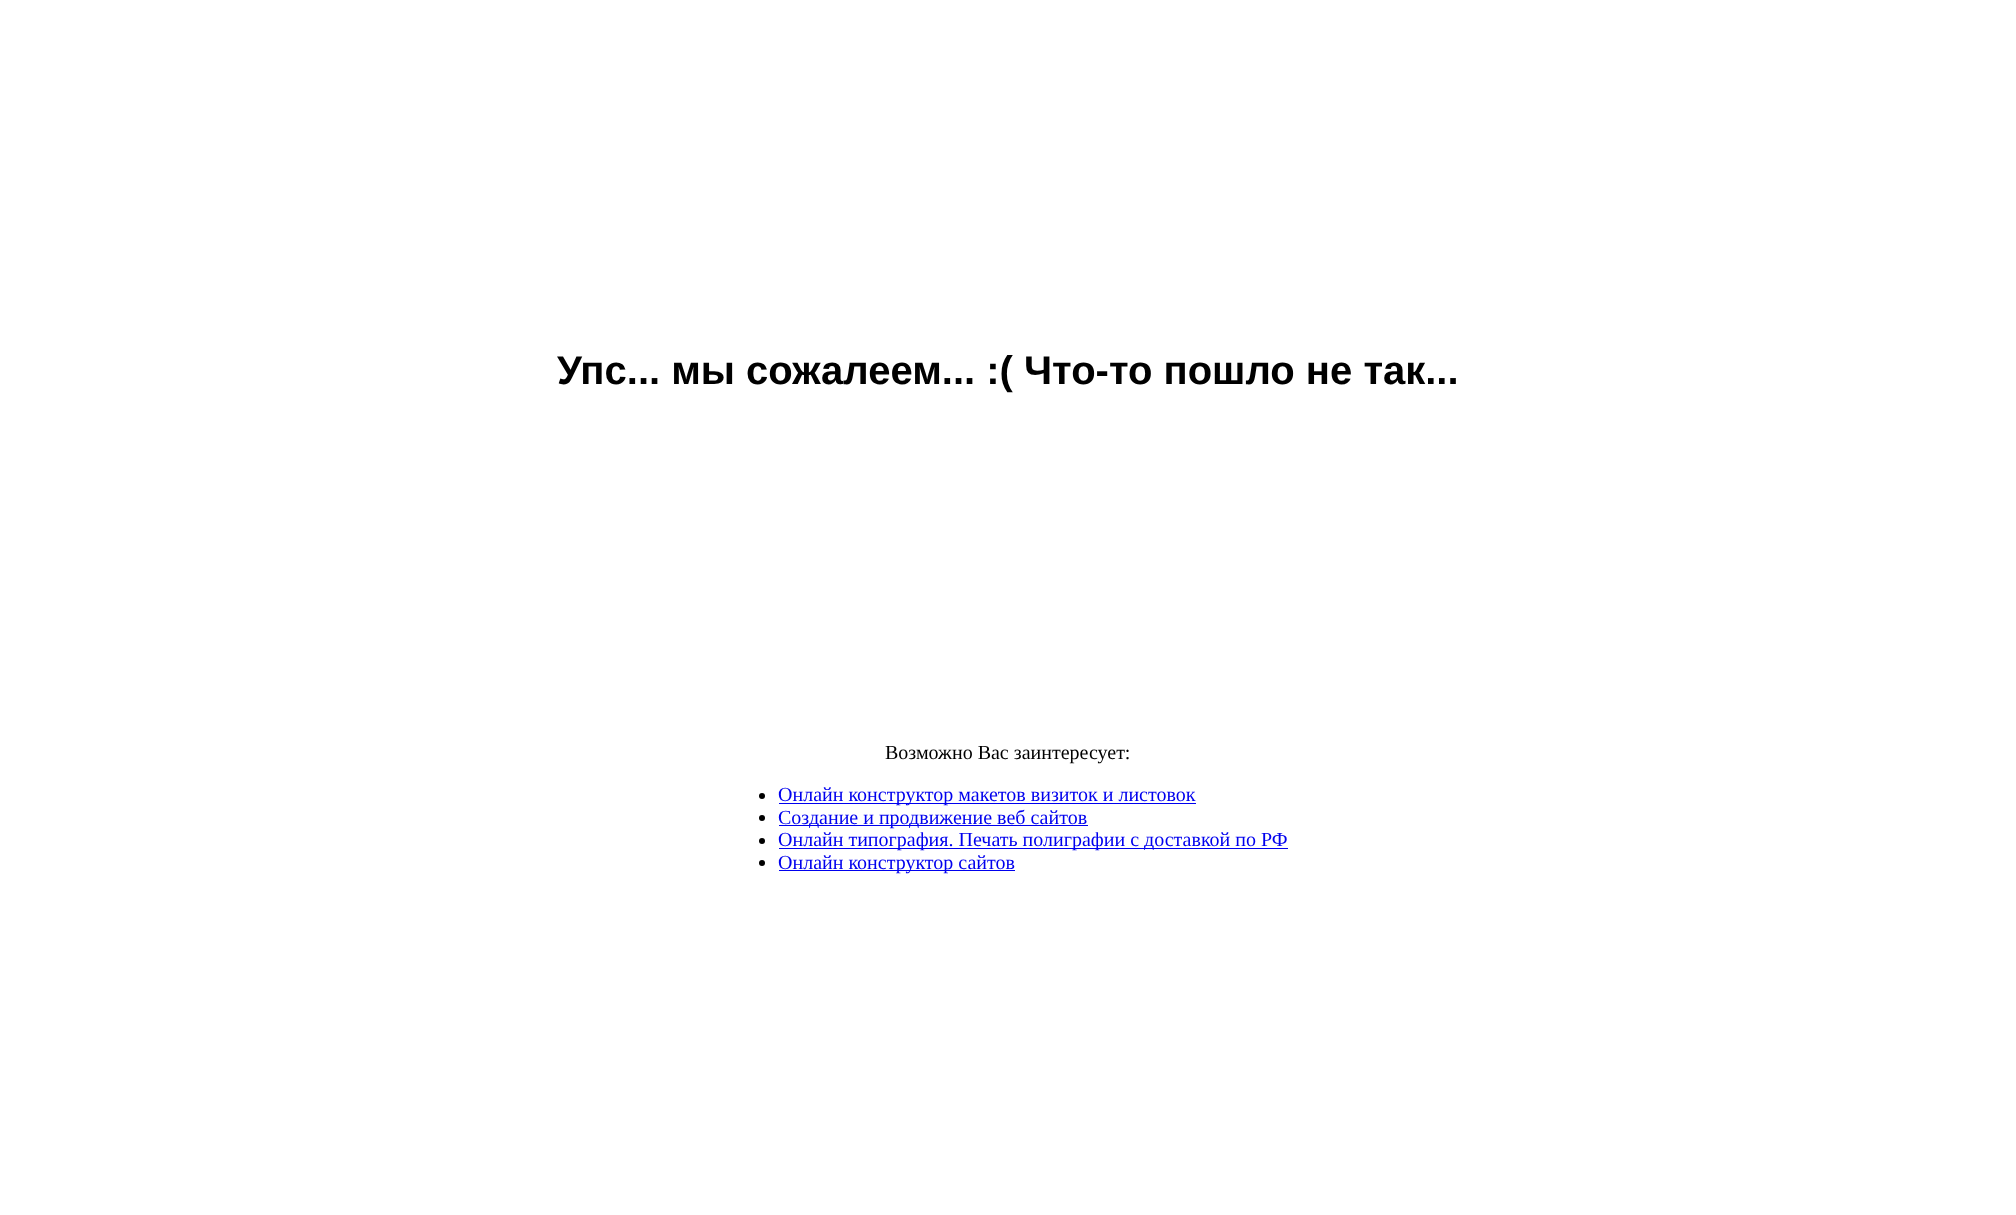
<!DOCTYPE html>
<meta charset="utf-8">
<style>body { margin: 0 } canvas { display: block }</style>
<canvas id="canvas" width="2016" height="1215"></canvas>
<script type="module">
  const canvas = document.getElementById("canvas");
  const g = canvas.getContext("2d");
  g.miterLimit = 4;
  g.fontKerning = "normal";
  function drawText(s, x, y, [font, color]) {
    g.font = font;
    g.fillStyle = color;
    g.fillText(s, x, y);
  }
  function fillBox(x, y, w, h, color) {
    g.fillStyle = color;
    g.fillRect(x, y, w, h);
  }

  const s1 = ["bold 40px Liberation Sans", "#000000"];
  const s2 = ["20px Liberation Serif", "#000000"];
  const s3 = ["20px Liberation Serif", "#0000EE"];

  fillBox(0, 0, 2016, 1215, "#FFFFFF");
  drawText("Упс... мы сожалеем... :( Что-то пошло не так...", 557, 384, s1);
  drawText("Возможно Вас заинтересует:", 885, 759, s2);
  g.beginPath();
  g.arc(762, 796, 3, 0, Math.PI * 2);
  g.fill();
  fillBox(779, 803, 417, 1, "#0000EE");
  drawText("Онлайн конструктор макетов визиток и листовок", 778, 801, s3);
  g.fillStyle = "#000000";
  g.beginPath();
  g.arc(762, 818, 3, 0, Math.PI * 2);
  g.fill();
  fillBox(779, 825, 309, 1, "#0000EE");
  drawText("Создание и продвижение веб сайтов", 778, 824, s3);
  g.fillStyle = "#000000";
  g.beginPath();
  g.arc(762, 841, 3, 0, Math.PI * 2);
  g.fill();
  fillBox(779, 848, 509, 1, "#0000EE");
  drawText("Онлайн типография. Печать полиграфии с доставкой по РФ", 778, 846, s3);
  g.fillStyle = "#000000";
  g.beginPath();
  g.arc(762, 863, 3, 0, Math.PI * 2);
  g.fill();
  fillBox(779, 870, 236, 1, "#0000EE");
  drawText("Онлайн конструктор сайтов", 778, 869, s3);
</script>
